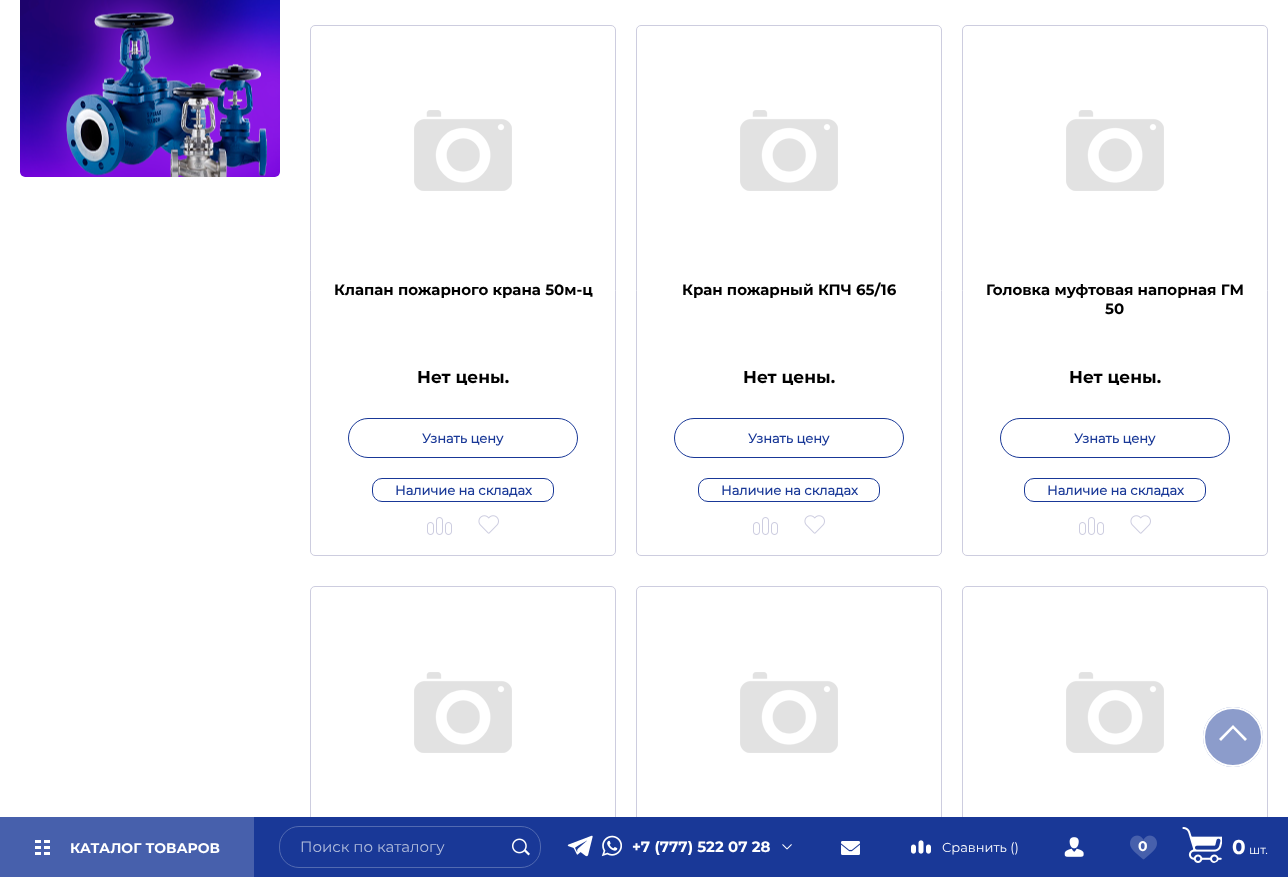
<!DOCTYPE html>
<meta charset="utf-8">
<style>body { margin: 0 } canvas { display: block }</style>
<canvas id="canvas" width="1288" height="877"></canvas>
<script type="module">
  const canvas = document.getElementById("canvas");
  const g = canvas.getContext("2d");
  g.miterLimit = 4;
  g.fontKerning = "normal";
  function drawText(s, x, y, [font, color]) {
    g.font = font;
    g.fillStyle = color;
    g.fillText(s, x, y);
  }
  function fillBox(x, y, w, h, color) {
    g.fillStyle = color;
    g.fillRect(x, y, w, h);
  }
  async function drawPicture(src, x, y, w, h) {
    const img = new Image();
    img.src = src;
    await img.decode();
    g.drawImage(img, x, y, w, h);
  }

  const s1 = ["bold 15px Montserrat", "#000000"];
  const s2 = ["bold 17px Montserrat", "#000000"];
  const s3 = ["bold 13px 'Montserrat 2'", "#193897"];
  const s4 = ["bold 14px Montserrat", "#FFFFFF"];
  const s5 = ["15px Montserrat", "#B2BDDC"];
  const s6 = ["bold 15px Montserrat", "#FFFFFF"];
  const s7 = ["13px Montserrat", "#FFFFFF"];
  const s8 = ["bold 20px Montserrat", "#FFFFFF"];
  const s9 = ["12px Montserrat", "#FFFFFF"];

  fillBox(0, 0, 1288, 877, "#FFFFFF");
  await drawPicture("pic1.png", 20, 0, 260, 177);
  g.beginPath();
  g.roundRect(310.5, 25.5, 305, 530, 4.5);
  g.strokeStyle = "#CDCDDF";
  g.stroke();
  await drawPicture("pic2.png", 414, 110, 98, 81);
  drawText("Клапан пожарного крана 50м-ц", 334, 295, s1);
  drawText("Нет цены.", 417, 383, s2);
  g.beginPath();
  g.roundRect(348.5, 418.5, 229, 39, 19.5);
  g.strokeStyle = "#193897";
  g.stroke();
  drawText("Узнать цену", 422, 443, s3);
  g.beginPath();
  g.roundRect(372.5, 478.5, 181, 23, 9.5);
  g.stroke();
  drawText("Наличие на складах", 395, 495, s3);
  await drawPicture("pic3.png", 427, 517, 25, 18);
  await drawPicture("pic4.png", 478, 515, 21, 19);
  g.beginPath();
  g.roundRect(636.5, 25.5, 305, 530, 4.5);
  g.strokeStyle = "#CDCDDF";
  g.stroke();
  await drawPicture("pic2.png", 740, 110, 98, 81);
  drawText("Кран пожарный КПЧ 65/16", 682, 295, s1);
  drawText("Нет цены.", 743, 383, s2);
  g.beginPath();
  g.roundRect(674.5, 418.5, 229, 39, 19.5);
  g.strokeStyle = "#193897";
  g.stroke();
  drawText("Узнать цену", 748, 443, s3);
  g.beginPath();
  g.roundRect(698.5, 478.5, 181, 23, 9.5);
  g.stroke();
  drawText("Наличие на складах", 721, 495, s3);
  await drawPicture("pic3.png", 753, 517, 25, 18);
  await drawPicture("pic4.png", 804, 515, 21, 19);
  g.beginPath();
  g.roundRect(962.5, 25.5, 305, 530, 4.5);
  g.strokeStyle = "#CDCDDF";
  g.stroke();
  await drawPicture("pic2.png", 1066, 110, 98, 81);
  drawText("Головка муфтовая напорная ГМ", 986, 295, s1);
  drawText("50", 1105, 314, s1);
  drawText("Нет цены.", 1069, 383, s2);
  g.beginPath();
  g.roundRect(1000.5, 418.5, 229, 39, 19.5);
  g.strokeStyle = "#193897";
  g.stroke();
  drawText("Узнать цену", 1074, 443, s3);
  g.beginPath();
  g.roundRect(1024.5, 478.5, 181, 23, 9.5);
  g.stroke();
  drawText("Наличие на складах", 1047, 495, s3);
  await drawPicture("pic3.png", 1079, 517, 25, 18);
  await drawPicture("pic4.png", 1130, 515, 21, 19);
  g.beginPath();
  g.roundRect(310.5, 586.5, 305, 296, 4.5);
  g.strokeStyle = "#CDCDDF";
  g.stroke();
  await drawPicture("pic2.png", 414, 672, 98, 81);
  g.beginPath();
  g.roundRect(636.5, 586.5, 305, 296, 4.5);
  g.stroke();
  await drawPicture("pic2.png", 740, 672, 98, 81);
  g.beginPath();
  g.roundRect(962.5, 586.5, 305, 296, 4.5);
  g.stroke();
  await drawPicture("pic2.png", 1066, 672, 98, 81);
  g.fillStyle = "#8C9CCB";
  g.beginPath();
  g.arc(1233, 737, 30, 0, Math.PI * 2);
  g.fill();
  g.fillStyle = "#FFFFFF";
  g.beginPath();
  g.moveTo(1247, 739);
  g.lineTo(1245, 741);
  g.lineTo(1233, 728.5);
  g.lineTo(1221, 741);
  g.lineTo(1219, 739);
  g.lineTo(1233, 725);
  g.closePath();
  g.fill("evenodd");
  g.beginPath();
  g.arc(1233, 737, 29, 0, Math.PI * 2);
  g.strokeStyle = "#FFFFFF";
  g.lineWidth = 2;
  g.stroke();
  fillBox(254, 817, 1034, 60, "#193897");
  fillBox(0, 817, 254, 60, "#4760AC");
  await drawPicture("pic5.png", 35, 840, 15, 15);
  drawText("КАТАЛОГ ТОВАРОВ", 70, 853, s4);
  g.beginPath();
  g.roundRect(279.5, 826.5, 261, 41, 19.5);
  g.strokeStyle = "#526AB1";
  g.lineWidth = 1;
  g.stroke();
  drawText("Поиск по каталогу", 300, 852, s5);
  await drawPicture("pic6.png", 512, 838, 18, 18);
  await drawPicture("pic7.png", 567, 835, 55, 22);
  drawText("+7 (777) 522 07 28", 632, 852, s6);
  await drawPicture("pic8.png", 782, 844, 10, 6);
  await drawPicture("pic9.png", 841, 841, 19, 14);
  await drawPicture("pic10.png", 911, 840, 20, 14);
  drawText("Сравнить ()", 942, 852, s7);
  await drawPicture("pic11.png", 1064, 837, 20, 20);
  await drawPicture("pic12.png", 1130, 835, 27, 25);
  drawText("0", 1138, 851, s4);
  await drawPicture("pic13.png", 1182, 827, 40, 36);
  drawText("0", 1232, 854, s8);
  drawText("шт.", 1249, 854, s9);
</script>
